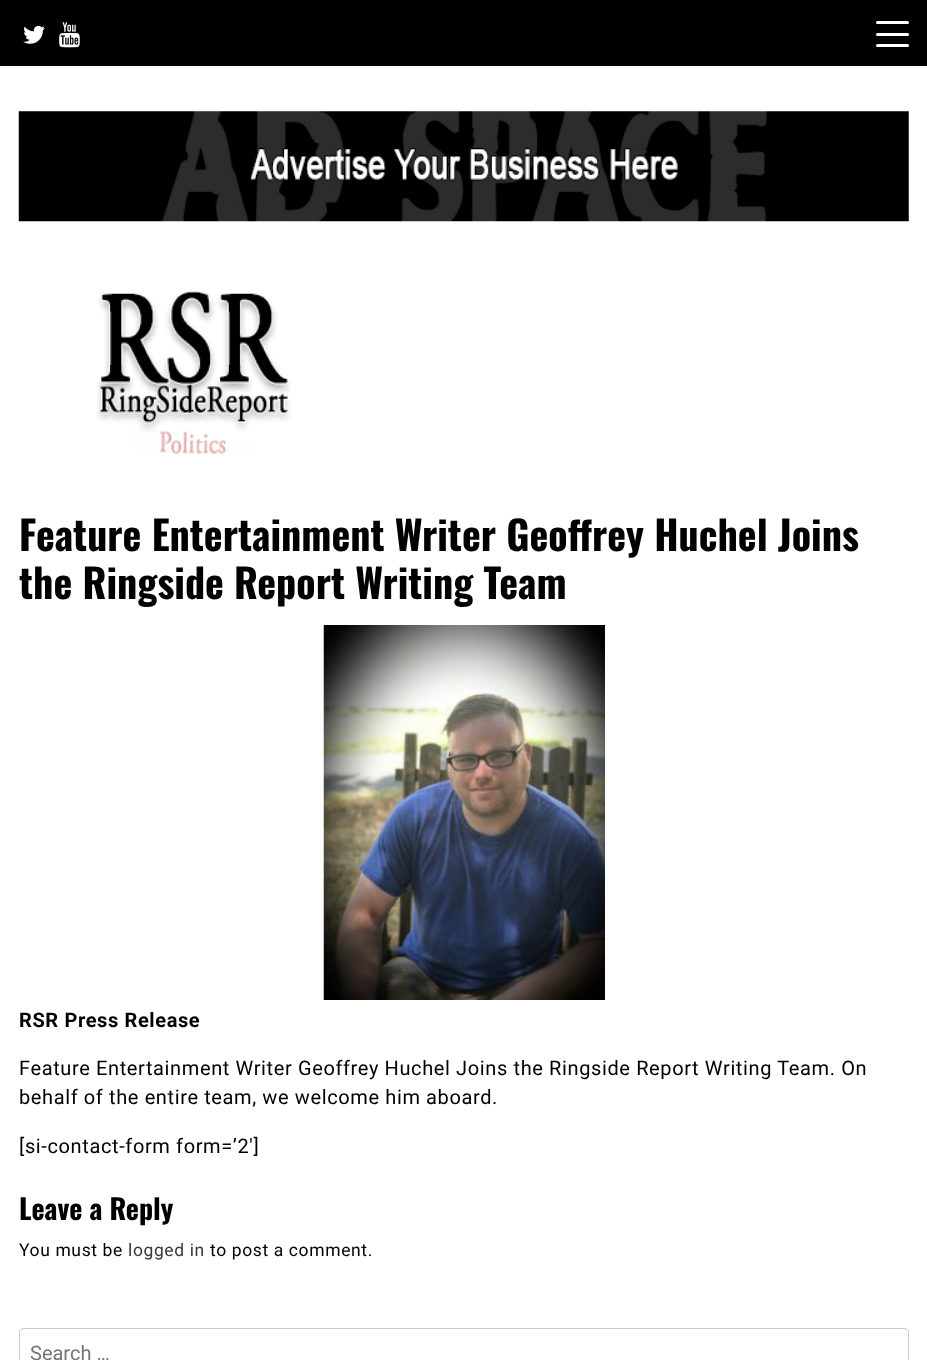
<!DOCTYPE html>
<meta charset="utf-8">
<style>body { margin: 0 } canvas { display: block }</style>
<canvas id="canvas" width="927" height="1360"></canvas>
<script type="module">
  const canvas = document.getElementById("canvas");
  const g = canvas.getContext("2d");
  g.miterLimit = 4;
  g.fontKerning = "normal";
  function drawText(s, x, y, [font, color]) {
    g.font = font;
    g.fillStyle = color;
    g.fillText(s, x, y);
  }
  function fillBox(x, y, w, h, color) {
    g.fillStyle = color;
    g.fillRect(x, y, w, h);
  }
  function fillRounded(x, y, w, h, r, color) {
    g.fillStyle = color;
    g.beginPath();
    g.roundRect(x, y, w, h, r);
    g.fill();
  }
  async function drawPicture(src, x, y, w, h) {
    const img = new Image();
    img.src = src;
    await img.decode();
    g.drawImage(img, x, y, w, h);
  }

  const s1 = ["bold 40px Oswald", "#000000"];
  const s2 = ["bold 20px Roboto", "#000000"];
  const s3 = ["20px Roboto", "#000000"];
  const s4 = ["bold 28px Oswald", "#000000"];
  const s5 = ["17.5px Roboto", "#000000"];
  const s6 = ["17.5px Roboto", "#3B3839"];
  const s7 = ["20px Roboto", "#757575"];

  fillBox(0, 0, 927, 1360, "#FFFFFF");
  fillBox(0, 0, 927, 66, "#000000");
  await drawPicture("pic1.png", 23, 25, 22, 19);
  await drawPicture("pic2.png", 59, 22, 21, 26);
  fillRounded(876, 33, 33, 3, 1.5, "#FFFFFF");
  fillRounded(876, 21, 33, 3, 1.5, "#FFFFFF");
  fillRounded(876, 44, 33, 3, 1.5, "#FFFFFF");
  await drawPicture("pic3.png", 18, 111, 891, 111);
  await drawPicture("pic4.png", 97, 291, 194, 163);
  drawText("Feature Entertainment Writer Geoffrey Huchel Joins", 19, 551, s1);
  drawText("the Ringside Report Writing Team", 19, 599, s1);
  await drawPicture("pic5.png", 323, 625, 282, 375);
  g.letterSpacing = "0.62px";
  drawText("RSR Press Release", 19, 1027, s2);
  drawText("Feature Entertainment Writer Geoffrey Huchel Joins the Ringside Report Writing Team. On", 19, 1075, s3);
  drawText("behalf of the entire team, we welcome him aboard.", 19, 1104, s3);
  drawText("[si-contact-form form=’2′]", 19, 1153, s3);
  g.letterSpacing = "0px";
  drawText("Leave a Reply", 19, 1220, s4);
  g.letterSpacing = "0.62px";
  drawText("You must be", 19, 1256, s5);
  drawText("logged in", 128, 1256, s6);
  drawText("to post a comment.", 210, 1256, s5);
  g.beginPath();
  g.roundRect(19.5, 1328.5, 889, 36, 3.5);
  g.strokeStyle = "#CCCCCC";
  g.stroke();
  g.letterSpacing = "0px";
  drawText("Search …", 30, 1360, s7);
</script>
